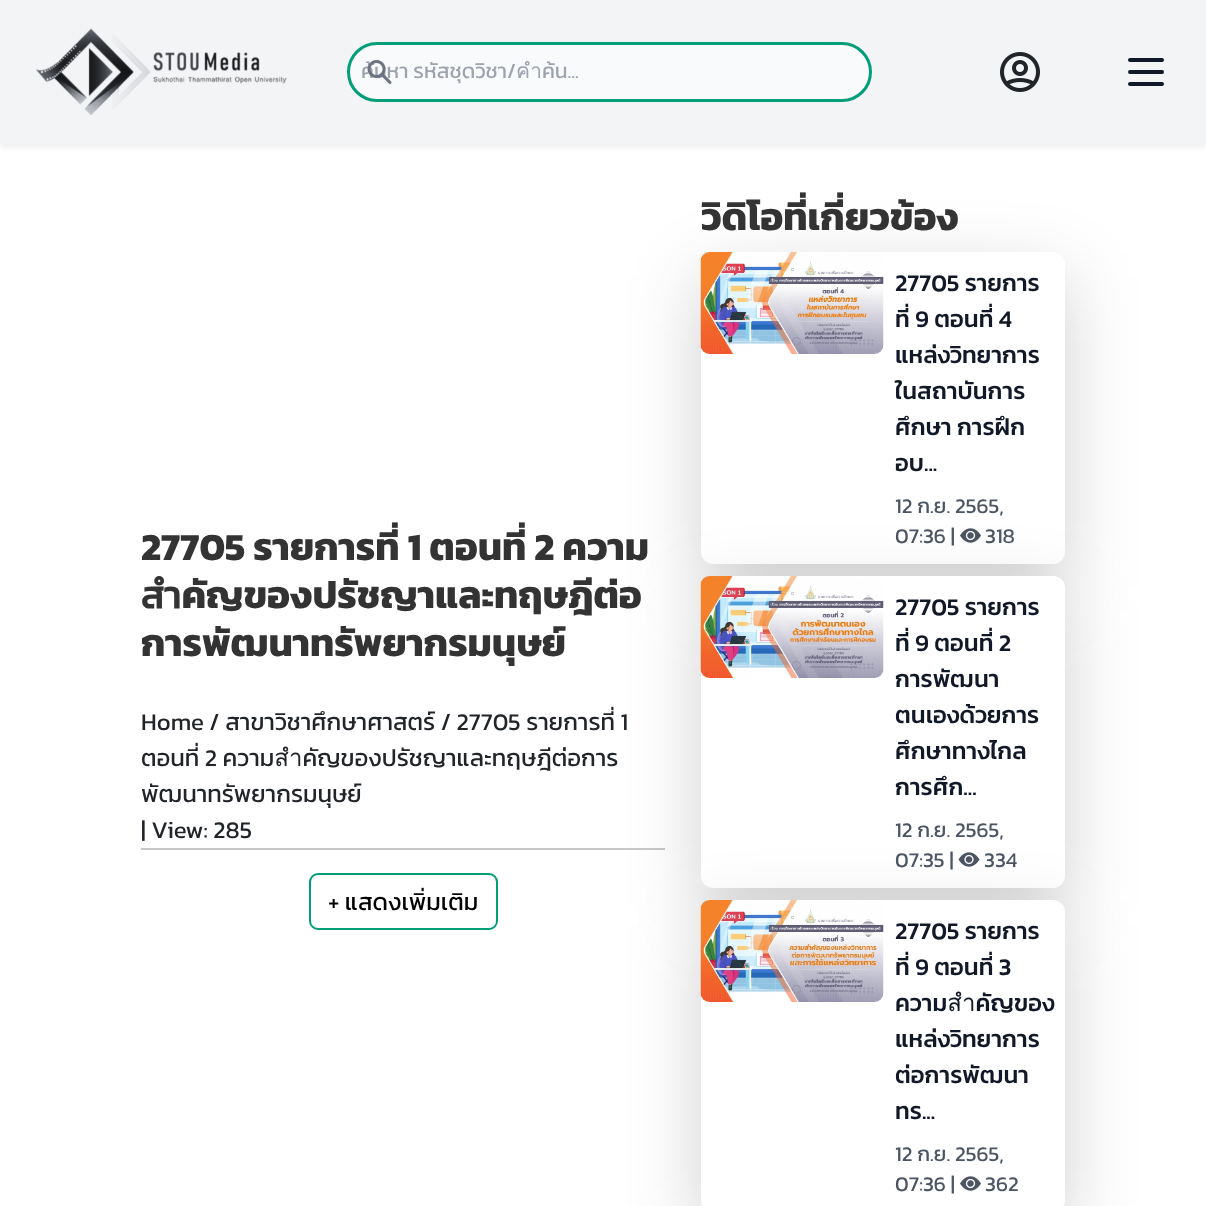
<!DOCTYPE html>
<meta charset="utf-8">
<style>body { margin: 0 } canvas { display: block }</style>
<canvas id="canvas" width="1206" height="1206"></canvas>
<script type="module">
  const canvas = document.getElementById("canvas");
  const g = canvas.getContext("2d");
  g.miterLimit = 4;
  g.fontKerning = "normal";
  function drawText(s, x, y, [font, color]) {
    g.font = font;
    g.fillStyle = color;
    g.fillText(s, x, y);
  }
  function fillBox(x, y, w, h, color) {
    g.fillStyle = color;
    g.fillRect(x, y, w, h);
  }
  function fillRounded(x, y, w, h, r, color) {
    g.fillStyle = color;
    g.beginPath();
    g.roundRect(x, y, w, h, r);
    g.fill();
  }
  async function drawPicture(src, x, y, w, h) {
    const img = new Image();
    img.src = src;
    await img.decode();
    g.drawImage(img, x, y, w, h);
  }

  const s1 = ["21px Kanit", "#9CA3AF"];
  const s2 = ["bold 38.5px Kanit", "#333333"];
  const s3 = ["24px Kanit", "#212529"];
  const s4 = ["24px Kanit", "#000000"];
  const s5 = ["500 24px Kanit", "#111827"];
  const s6 = ["21px Kanit", "#4B5563"];

  fillBox(0, 0, 1206, 1206, "#FFFFFF");
  g.fillStyle = "rgba(0, 0, 0, 0.07)";
  g.filter = "blur(3px)";
  g.beginPath();
  g.rect(0, 3, 1206, 144);
  g.fill();
  g.filter = "none";
  fillBox(0, 0, 1206, 144, "#F3F4F6");
  await drawPicture("pic1.png", 36, 28, 251, 88);
  g.fillStyle = "#F9FAFB";
  g.beginPath();
  g.roundRect(348.5, 43.5, 522, 57, 28.5);
  g.fill();
  g.strokeStyle = "#019E79";
  g.lineWidth = 3;
  g.stroke();
  g.save();
  g.beginPath();
  g.rect(362, 56, 474, 31);
  g.clip();
  drawText("ค้นหา รหัสชุดวิชา/คำค้น...", 361, 78, s1);
  g.restore();
  await drawPicture("pic2.png", 367, 60, 25, 24);
  await drawPicture("pic3.png", 1000, 52, 40, 40);
  g.beginPath();
  g.moveTo(1130, 60);
  g.lineTo(1162, 60);
  g.moveTo(1130, 72);
  g.lineTo(1162, 72);
  g.moveTo(1130, 84);
  g.lineTo(1162, 84);
  g.strokeStyle = "#111827";
  g.lineWidth = 4;
  g.lineCap = "round";
  g.lineJoin = "round";
  g.stroke();
  drawText("27705 รายการที่ 1 ตอนที่ 2 ความ", 141, 560, s2);
  drawText("สำคัญของปรัชญาและทฤษฎีต่อ", 141, 608, s2);
  drawText("การพัฒนาทรัพยากรมนุษย์", 141, 656, s2);
  drawText("Home / สาขาวิชาศึกษาศาสตร์ / 27705 รายการที่ 1", 141, 730, s3);
  drawText("ตอนที่ 2 ความสำคัญของปรัชญาและทฤษฎีต่อการ", 141, 766, s3);
  drawText("พัฒนาทรัพยากรมนุษย์", 141, 802, s3);
  drawText("| View: 285", 141, 838, s3);
  g.fillStyle = "rgba(0, 0, 0, 0.18)";
  g.filter = "blur(36px)";
  g.beginPath();
  g.roundRect(701, 276, 364, 312, 12);
  g.fill();
  g.filter = "none";
  fillRounded(701, 252, 364, 312, 12, "#FFFFFF");
  await drawPicture("pic5.png", 960, 528, 21, 15);
  g.fillStyle = "rgba(0, 0, 0, 0.18)";
  g.filter = "blur(36px)";
  g.beginPath();
  g.roundRect(701, 600, 364, 312, 12);
  g.fill();
  g.filter = "none";
  fillRounded(701, 576, 364, 312, 12, "#FFFFFF");
  await drawPicture("pic7.png", 958, 852, 22, 15);
  g.fillStyle = "rgba(0, 0, 0, 0.18)";
  g.filter = "blur(36px)";
  g.beginPath();
  g.roundRect(701, 924, 364, 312, 12);
  g.fill();
  g.filter = "none";
  fillBox(141, 848, 524, 2, "rgba(33, 37, 41, 0.25)");
  g.beginPath();
  g.roundRect(310, 874, 187, 55, 8);
  g.strokeStyle = "#019E79";
  g.lineWidth = 2;
  g.lineJoin = "miter";
  g.stroke();
  drawText("+ แสดงเพิ่มเติม", 328, 910, s4);
  drawText("วิดิโอที่เกี่ยวข้อง", 701, 230, s2);
  await drawPicture("pic4.png", 700, 252, 184, 102);
  drawText("27705 รายการ", 895, 291, s5);
  drawText("ที่ 9 ตอนที่ 4", 895, 327, s5);
  drawText("แหล่งวิทยาการ", 895, 363, s5);
  drawText("ในสถาบันการ", 895, 399, s5);
  drawText("ศึกษา การฝึก", 895, 435, s5);
  drawText("อบ...", 895, 471, s5);
  drawText("12 ก.ย. 2565,", 895, 513, s6);
  drawText("07:36 |", 895, 543, s6);
  drawText("318", 985, 543, s6);
  await drawPicture("pic6.png", 700, 576, 184, 102);
  drawText("27705 รายการ", 895, 615, s5);
  drawText("ที่ 9 ตอนที่ 2", 895, 651, s5);
  drawText("การพัฒนา", 895, 687, s5);
  drawText("ตนเองด้วยการ", 895, 723, s5);
  drawText("ศึกษาทางไกล", 895, 759, s5);
  drawText("การศึก...", 895, 795, s5);
  drawText("12 ก.ย. 2565,", 895, 837, s6);
  drawText("07:35 |", 895, 867, s6);
  drawText("334", 984, 867, s6);
  fillRounded(701, 900, 364, 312, 12, "#FFFFFF");
  await drawPicture("pic8.png", 700, 900, 184, 102);
  drawText("27705 รายการ", 895, 939, s5);
  drawText("ที่ 9 ตอนที่ 3", 895, 975, s5);
  drawText("ความสำคัญของ", 895, 1011, s5);
  drawText("แหล่งวิทยาการ", 895, 1047, s5);
  drawText("ต่อการพัฒนา", 895, 1083, s5);
  drawText("ทร...", 895, 1119, s5);
  drawText("12 ก.ย. 2565,", 895, 1161, s6);
  drawText("07:36 |", 895, 1191, s6);
  await drawPicture("pic5.png", 960, 1176, 21, 15);
  drawText("362", 985, 1191, s6);
</script>
